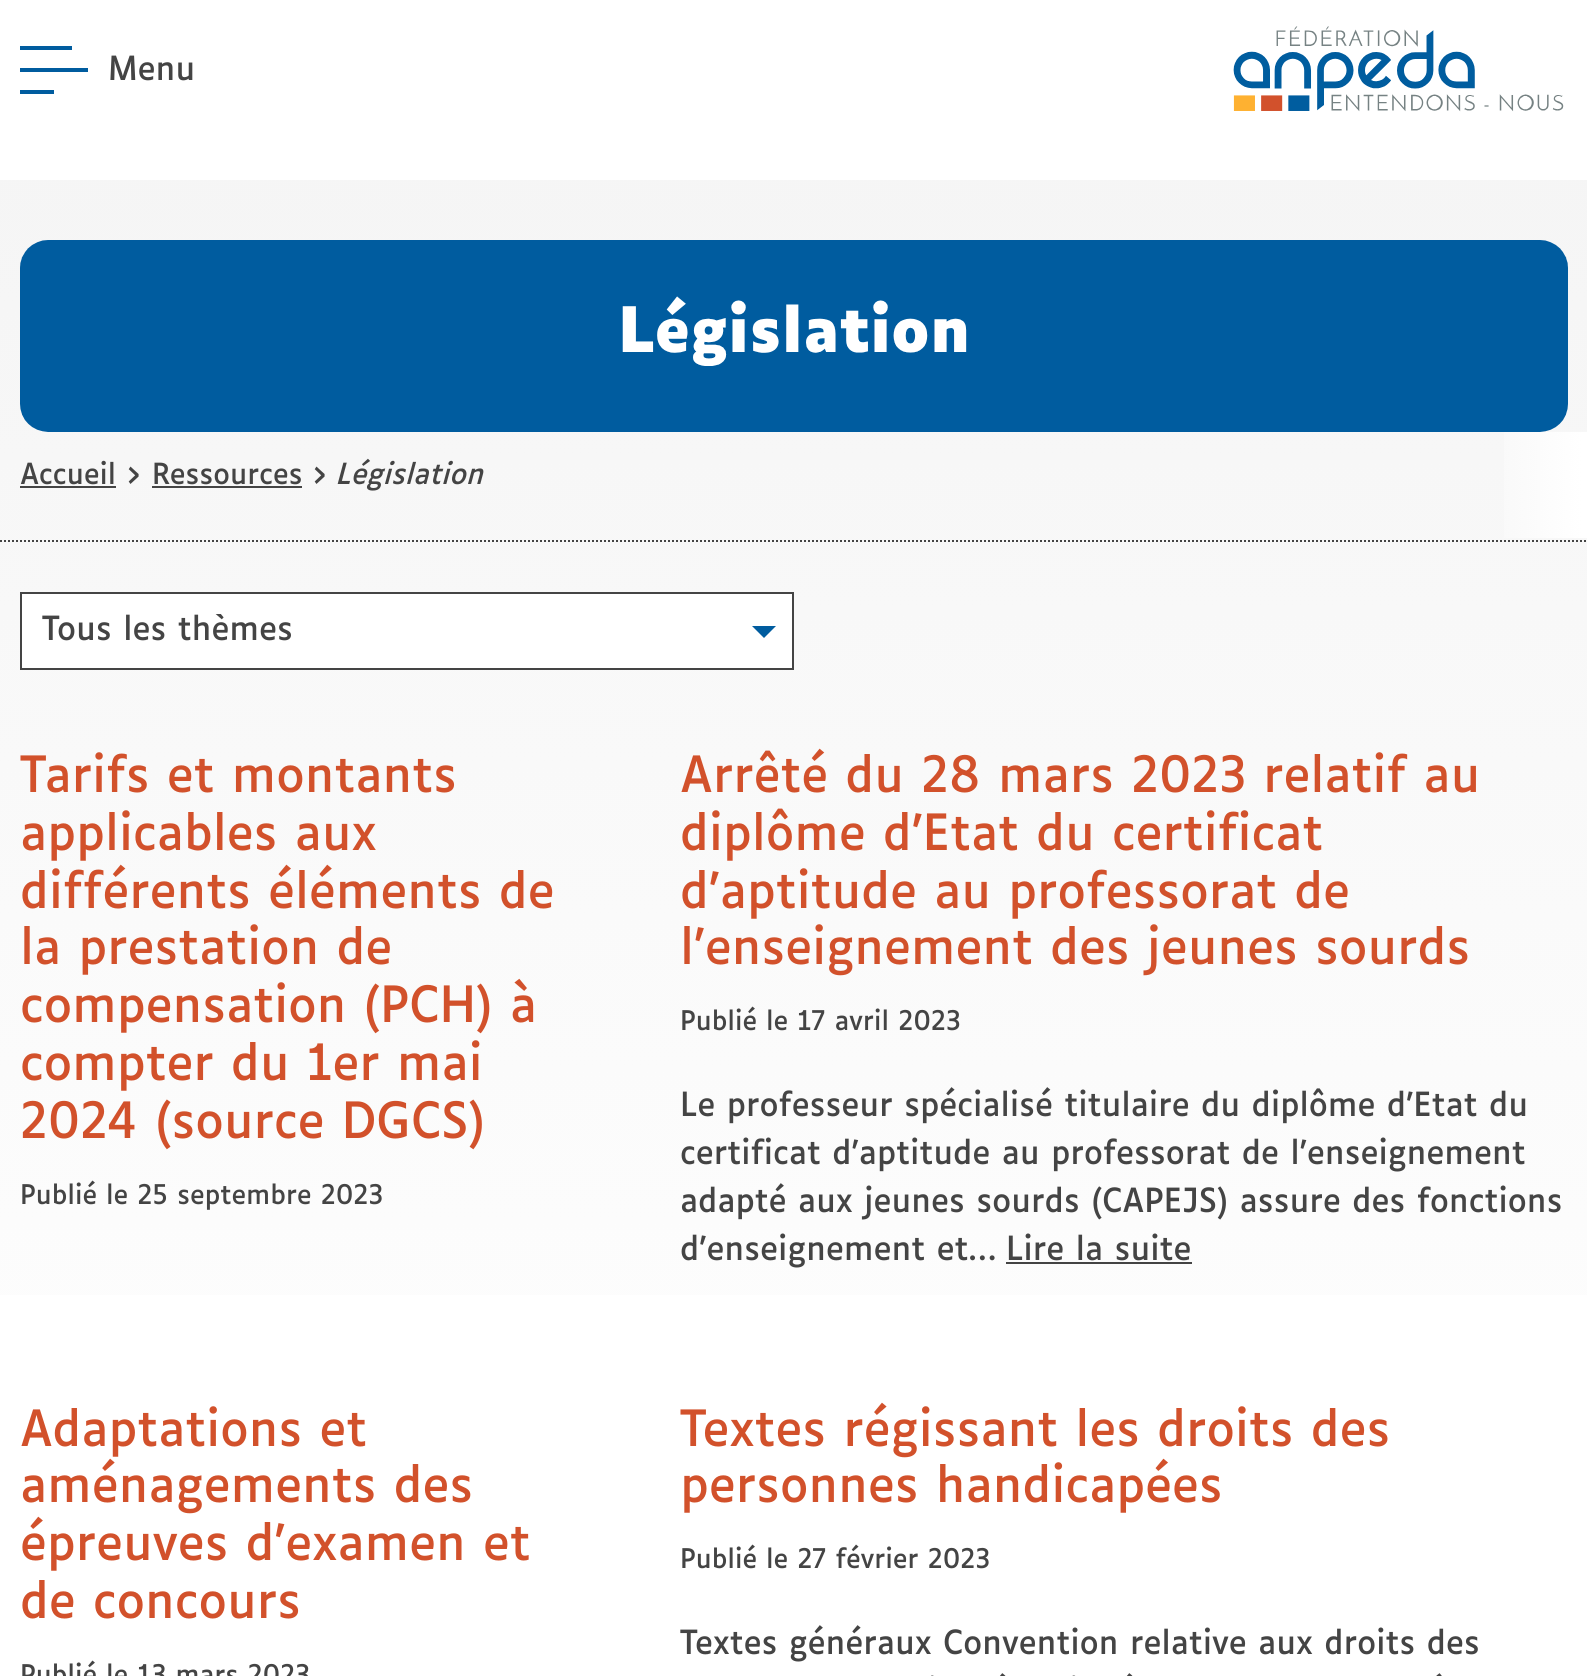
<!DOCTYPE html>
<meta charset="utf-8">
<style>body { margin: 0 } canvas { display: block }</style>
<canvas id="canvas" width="1587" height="1676"></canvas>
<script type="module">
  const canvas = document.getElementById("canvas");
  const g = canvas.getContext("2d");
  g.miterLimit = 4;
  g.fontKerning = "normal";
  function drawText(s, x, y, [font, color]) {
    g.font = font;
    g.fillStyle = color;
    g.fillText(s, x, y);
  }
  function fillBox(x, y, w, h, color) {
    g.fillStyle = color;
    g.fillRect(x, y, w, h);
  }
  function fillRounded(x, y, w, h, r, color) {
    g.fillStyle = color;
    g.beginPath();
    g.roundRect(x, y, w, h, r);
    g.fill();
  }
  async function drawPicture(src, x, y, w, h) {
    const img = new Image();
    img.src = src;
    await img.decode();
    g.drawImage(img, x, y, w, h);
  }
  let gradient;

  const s1 = ["bold 60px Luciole", "#FFFFFF"];

  fillBox(0, 0, 1587, 1676, "#FFFFFF");
  gradient = g.createLinearGradient(794, 0, 794, 1676);
  gradient.addColorStop(0, "#F4F4F4");
  gradient.addColorStop(1, "#FFFFFF");
  g.fillStyle = gradient;
  g.fillRect(0, 180, 1587, 1115);
  fillBox(20, 68, 68, 4, "#005C9F");
  fillBox(20, 46, 52, 4, "#005C9F");
  await drawPicture("pic1.png", 110, 55, 83, 26);
  fillBox(20, 90, 34, 4, "#005C9F");
  await drawPicture("pic2.png", 1233, 26, 331, 86);
  fillRounded(20, 240, 1548, 192, 28, "#005C9F");
  drawText("Législation", 618, 352, s1);
  gradient = g.createLinearGradient(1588, 485, 1468, 485);
  gradient.addColorStop(0, "#FFFFFF");
  gradient.addColorStop(0.05, "#FFFFFF");
  gradient.addColorStop(1, "#F7F7F7");
  g.fillStyle = gradient;
  g.fillRect(1504, 432, 83, 106);
  g.beginPath();
  g.moveTo(0, 541);
  g.lineTo(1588, 541);
  g.strokeStyle = "#444444";
  g.lineWidth = 2;
  g.setLineDash([2, 2]);
  g.stroke();
  await drawPicture("pic3.png", 20, 460, 94, 25);
  await drawPicture("pic4.png", 128, 466, 11, 18);
  await drawPicture("pic5.png", 154, 462, 147, 23);
  await drawPicture("pic4.png", 314, 466, 11, 18);
  await drawPicture("pic6.png", 337, 458, 147, 33);
  fillBox(20, 486, 96, 2, "#444444");
  fillBox(152, 486, 150, 2, "#444444");
  g.fillStyle = "#FFFFFF";
  g.beginPath();
  g.rect(21, 593, 772, 76);
  g.fill();
  g.setLineDash([]);
  g.stroke();
  await drawPicture("pic7.png", 42, 614, 249, 27);
  g.fillStyle = "#005C9F";
  g.beginPath();
  g.moveTo(752, 626);
  g.lineTo(776, 626);
  g.lineTo(764, 638);
  g.closePath();
  g.fill();
  await drawPicture("pic8.png", 20, 752, 435, 41);
  await drawPicture("pic9.png", 22, 810, 354, 51);
  await drawPicture("pic10.png", 22, 864, 531, 45);
  await drawPicture("pic11.png", 24, 924, 366, 51);
  await drawPicture("pic12.png", 22, 978, 512, 56);
  await drawPicture("pic13.png", 22, 1040, 458, 51);
  await drawPicture("pic14.png", 22, 1099, 460, 51);
  await drawPicture("pic15.png", 22, 1180, 74, 25);
  await drawPicture("pic16.png", 108, 1183, 274, 27);
  await drawPicture("pic17.png", 681, 748, 795, 45);
  await drawPicture("pic18.png", 682, 808, 640, 53);
  await drawPicture("pic19.png", 682, 868, 666, 51);
  await drawPicture("pic20.png", 684, 924, 784, 52);
  await drawPicture("pic21.png", 682, 1006, 74, 25);
  await drawPicture("pic22.png", 768, 1008, 192, 23);
  await drawPicture("pic23.png", 682, 1087, 844, 37);
  await drawPicture("pic24.png", 681, 1137, 844, 35);
  await drawPicture("pic25.png", 681, 1183, 880, 37);
  await drawPicture("pic26.png", 681, 1233, 314, 35);
  await drawPicture("pic27.png", 1008, 1233, 182, 28);
  fillBox(1006, 1262, 186, 2, "#444444");
  await drawPicture("pic28.png", 21, 1406, 345, 51);
  await drawPicture("pic29.png", 22, 1458, 449, 56);
  await drawPicture("pic30.png", 22, 1516, 507, 55);
  await drawPicture("pic31.png", 22, 1580, 277, 39);
  await drawPicture("pic32.png", 22, 1660, 74, 16);
  await drawPicture("pic33.png", 108, 1663, 201, 13);
  await drawPicture("pic34.png", 680, 1402, 708, 56);
  await drawPicture("pic35.png", 684, 1458, 536, 55);
  await drawPicture("pic36.png", 682, 1544, 74, 25);
  await drawPicture("pic37.png", 768, 1544, 221, 25);
  await drawPicture("pic38.png", 680, 1625, 798, 37);
  await drawPicture("pic39.png", 931, 1673, 511, 3);
</script>
